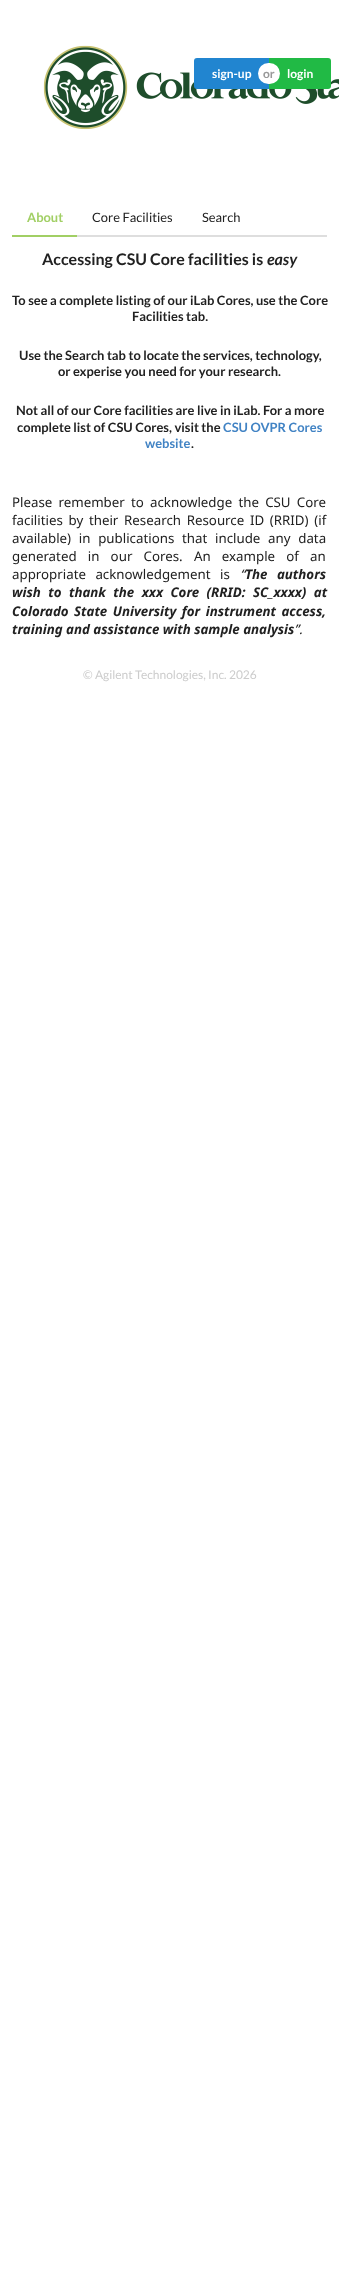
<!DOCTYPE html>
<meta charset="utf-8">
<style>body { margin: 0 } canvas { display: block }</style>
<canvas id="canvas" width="339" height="2277"></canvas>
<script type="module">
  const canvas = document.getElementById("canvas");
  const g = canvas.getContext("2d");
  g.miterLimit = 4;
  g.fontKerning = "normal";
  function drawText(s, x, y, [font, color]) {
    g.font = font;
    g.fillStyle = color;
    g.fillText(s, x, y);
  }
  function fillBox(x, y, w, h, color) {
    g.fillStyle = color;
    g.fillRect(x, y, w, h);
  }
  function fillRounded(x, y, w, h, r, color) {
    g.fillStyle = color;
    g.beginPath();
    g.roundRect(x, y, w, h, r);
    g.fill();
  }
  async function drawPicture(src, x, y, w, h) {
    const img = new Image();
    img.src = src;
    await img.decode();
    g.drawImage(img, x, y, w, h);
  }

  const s1 = ["bold 12px Lato", "#FFFFFF"];
  const s2 = ["bold 12px Lato", "#999999"];
  const s3 = ["bold 12.9px Lato", "#A1CF64"];
  const s4 = ["12.9px Lato", "#212121"];
  const s5 = ["bold 16px Lato", "#212121"];
  const s6 = ["italic bold 16px Lato", "#212121"];
  const s7 = ["bold 12.9px Lato", "#212121"];
  const s8 = ["bold 12.9px Lato", "#4183C4"];
  const s9 = ["13.3px Noto Sans", "#212121"];
  const s10 = ["italic 13.3px Noto Sans", "#212121"];
  const s11 = ["italic bold 13.3px Noto Sans", "#212121"];
  const s12 = ["12px Lato", "#CCCCCC"];

  fillBox(0, 0, 339, 2277, "#FFFFFF");
  await drawPicture("pic1.png", 43, 45, 296, 85);
  g.fillStyle = "#2185D0";
  g.beginPath();
  g.roundRect(194, 58, 75, 31, [3, 0, 0, 3]);
  g.fill();
  drawText("sign-up", 212, 78, s1);
  g.fillStyle = "#21BA45";
  g.beginPath();
  g.roundRect(269, 58, 62, 31, [0, 3, 3, 0]);
  g.fill();
  fillRounded(258, 63, 22, 21, 10.5, "#FFFFFF");
  drawText("or", 263, 78, s2);
  drawText("login", 287, 78, s1);
  fillBox(77, 235, 250, 2, "#DEDEDE");
  fillBox(12, 235, 65, 2, "#A1CF64");
  drawText("About", 27, 222, s3);
  drawText("Core Facilities", 92, 222, s4);
  drawText("Search", 202, 222, s4);
  drawText("Accessing CSU Core facilities is", 42, 265, s5);
  drawText("easy", 267, 265, s6);
  drawText("To see a complete listing of our iLab Cores, use the Core", 12, 305, s7);
  drawText("Facilities tab.", 132, 321, s7);
  drawText("Use the Search tab to locate the services, technology,", 19, 360, s7);
  drawText("or experise you need for your research.", 58, 376, s7);
  drawText("Not all of our Core facilities are live in iLab. For a more", 16, 415, s7);
  drawText("complete list of CSU Cores, visit the", 17, 432, s7);
  drawText("CSU OVPR Cores", 223, 432, s8);
  drawText("website", 145, 448, s8);
  drawText(".", 191, 448, s7);
  g.wordSpacing = "2.75px";
  drawText("Please remember to acknowledge the CSU Core", 12, 507, s9);
  g.wordSpacing = "2.25px";
  drawText("facilities by their Research Resource ID (RRID) (if", 12, 525, s9);
  g.wordSpacing = "4.25px";
  drawText("available) in publications that include any data", 12, 543, s9);
  g.wordSpacing = "7.75px";
  drawText("generated in our Cores. An example of an", 12, 561, s9);
  g.wordSpacing = "6px";
  drawText("appropriate acknowledgement is", 12, 579, s9);
  g.wordSpacing = "0px";
  drawText("“", 241, 579, s10);
  g.wordSpacing = "6px";
  drawText("The authors", 245, 579, s11);
  g.wordSpacing = "4px";
  drawText("wish to thank the xxx Core (RRID: SC_xxxx) at", 12, 597, s11);
  g.wordSpacing = "2px";
  drawText("Colorado State University for instrument access,", 12, 616, s11);
  g.wordSpacing = "0px";
  drawText("training and assistance with sample analysis", 12, 634, s11);
  drawText("”.", 295, 634, s10);
  drawText("© Agilent Technologies, Inc. 2026", 83, 679, s12);
</script>
